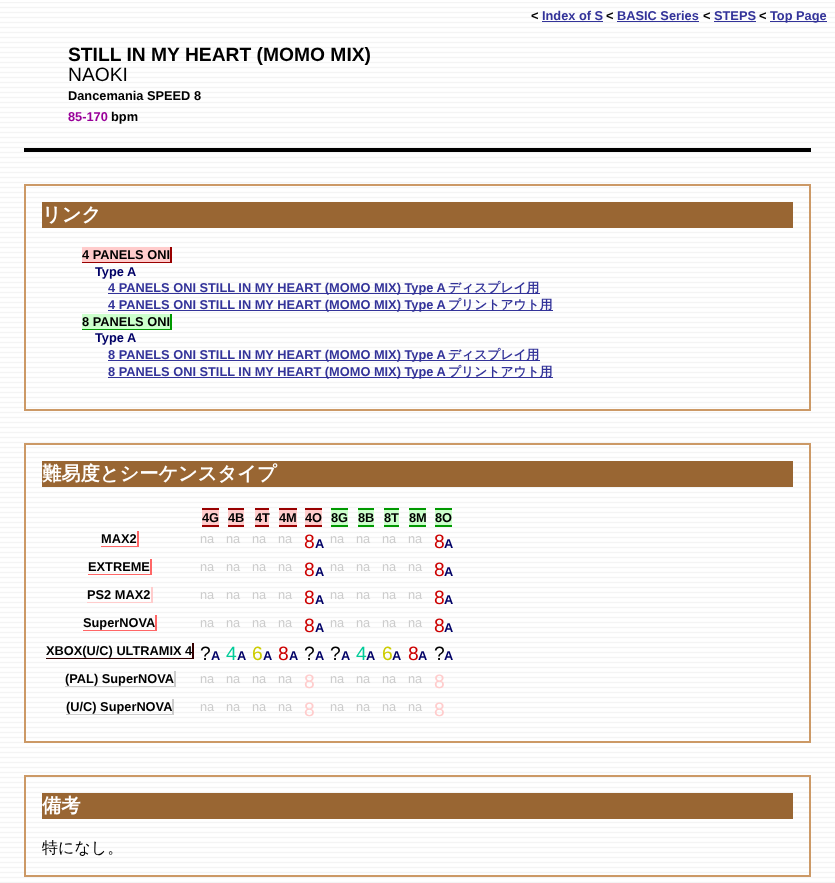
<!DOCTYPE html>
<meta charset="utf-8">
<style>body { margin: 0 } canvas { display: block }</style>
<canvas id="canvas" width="835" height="883"></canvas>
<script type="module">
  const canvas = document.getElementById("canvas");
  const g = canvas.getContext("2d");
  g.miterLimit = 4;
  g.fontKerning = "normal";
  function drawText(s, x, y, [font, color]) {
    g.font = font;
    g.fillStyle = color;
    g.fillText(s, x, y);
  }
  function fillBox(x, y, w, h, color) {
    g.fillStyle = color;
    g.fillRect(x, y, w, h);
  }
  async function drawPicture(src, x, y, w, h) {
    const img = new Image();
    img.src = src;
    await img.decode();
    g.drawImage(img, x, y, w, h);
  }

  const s1 = ["bold 12.8px Liberation Sans", "#000000"];
  const s2 = ["bold 12.8px Liberation Sans", "#333399"];
  const s3 = ["bold 19.25px Liberation Sans", "#000000"];
  const s4 = ["19.25px Liberation Sans", "#000000"];
  const s5 = ["bold 12.8px Liberation Sans", "#990099"];
  const s6 = ["bold 19.25px WenQuanYi Zen Hei", "#FFFFFF"];
  const s7 = ["bold 12.8px Liberation Sans", "#000066"];
  const s8 = ["bold 12.8px WenQuanYi Zen Hei", "#333399"];
  const s9 = ["12.8px Liberation Sans", "#CCCCCC"];
  const s10 = ["19.25px Liberation Sans", "#CC0000"];
  const s11 = ["19.25px Liberation Sans", "#00CC99"];
  const s12 = ["19.25px Liberation Sans", "#CCCC00"];
  const s13 = ["19.25px Liberation Sans", "#FFCCCC"];
  const s14 = ["500 16px WenQuanYi Zen Hei", "#000000"];

  fillBox(0, 0, 835, 883, "#FFFFFF");
  await drawPicture("pic1.png", 0, 2, 835, 881);
  drawText("<", 531, 20, s1);
  drawText("Index of S", 542, 20, s2);
  fillBox(542, 21, 61, 1, "#333399");
  drawText("<", 606, 20, s1);
  drawText("BASIC Series", 617, 20, s2);
  fillBox(617, 21, 82, 1, "#333399");
  drawText("<", 703, 20, s1);
  drawText("STEPS", 714, 20, s2);
  fillBox(714, 21, 42, 1, "#333399");
  drawText("<", 759, 20, s1);
  fillBox(770, 21, 57, 1, "#333399");
  drawText("Top Page", 770, 20, s2);
  fillBox(24, 148, 787, 4, "#000000");
  drawText("STILL IN MY HEART (MOMO MIX)", 68, 61, s3);
  drawText("NAOKI", 68, 81, s4);
  drawText("Dancemania SPEED 8", 68, 100, s1);
  drawText("85-170", 68, 121, s5);
  drawText("bpm", 111, 121, s1);
  g.strokeStyle = "#CC9966";
  g.lineWidth = 2;
  g.strokeRect(25, 185, 785, 225);
  fillBox(42, 202, 751, 26, "#996633");
  drawText("リンク", 42, 221, s6);
  fillBox(82, 247, 88, 15, "#FFCCCC");
  drawText("4 PANELS ONI", 82, 259, s1);
  fillBox(170, 247, 2, 16, "#990000");
  fillBox(82, 262, 90, 1, "#990000");
  drawText("Type A", 95, 276, s7);
  fillBox(108, 293, 432, 1, "#333399");
  drawText("4 PANELS ONI STILL IN MY HEART (MOMO MIX) Type A", 108, 292, s2);
  drawText("ディスプレイ用", 448, 292, s8);
  fillBox(108, 310, 445, 1, "#333399");
  drawText("4 PANELS ONI STILL IN MY HEART (MOMO MIX) Type A", 108, 309, s2);
  drawText("プリントアウト用", 448, 309, s8);
  fillBox(82, 314, 88, 15, "#CCFFCC");
  drawText("8 PANELS ONI", 82, 326, s1);
  fillBox(170, 314, 2, 16, "#009900");
  fillBox(82, 329, 90, 1, "#009900");
  drawText("Type A", 95, 342, s7);
  fillBox(108, 360, 432, 1, "#333399");
  drawText("8 PANELS ONI STILL IN MY HEART (MOMO MIX) Type A", 108, 359, s2);
  drawText("ディスプレイ用", 448, 359, s8);
  fillBox(108, 377, 445, 1, "#333399");
  drawText("8 PANELS ONI STILL IN MY HEART (MOMO MIX) Type A", 108, 376, s2);
  drawText("プリントアウト用", 448, 376, s8);
  g.strokeRect(25, 444, 785, 298);
  fillBox(42, 461, 751, 26, "#996633");
  drawText("難易度とシーケンスタイプ", 42, 480, s6);
  fillBox(202, 510, 17, 15, "#FFCCCC");
  drawText("4G", 202, 522, s1);
  fillBox(202, 508, 17, 2, "#990000");
  fillBox(202, 525, 17, 2, "#990000");
  fillBox(228, 510, 16, 15, "#FFCCCC");
  drawText("4B", 228, 522, s1);
  fillBox(228, 508, 16, 2, "#990000");
  fillBox(228, 525, 16, 2, "#990000");
  fillBox(255, 510, 14, 15, "#FFCCCC");
  drawText("4T", 255, 522, s1);
  fillBox(255, 508, 14, 2, "#990000");
  fillBox(255, 525, 14, 2, "#990000");
  fillBox(279, 510, 18, 15, "#FFCCCC");
  drawText("4M", 279, 522, s1);
  fillBox(279, 508, 18, 2, "#990000");
  fillBox(279, 525, 18, 2, "#990000");
  fillBox(305, 510, 17, 15, "#FFCCCC");
  drawText("4O", 305, 522, s1);
  fillBox(305, 508, 17, 2, "#990000");
  fillBox(305, 525, 17, 2, "#990000");
  fillBox(331, 510, 17, 15, "#CCFFCC");
  drawText("8G", 331, 522, s1);
  fillBox(331, 508, 17, 2, "#009900");
  fillBox(331, 525, 17, 2, "#009900");
  fillBox(358, 510, 16, 15, "#CCFFCC");
  drawText("8B", 358, 522, s1);
  fillBox(358, 508, 16, 2, "#009900");
  fillBox(358, 525, 16, 2, "#009900");
  fillBox(384, 510, 15, 15, "#CCFFCC");
  drawText("8T", 384, 522, s1);
  fillBox(384, 508, 15, 2, "#009900");
  fillBox(384, 525, 15, 2, "#009900");
  fillBox(409, 510, 17, 15, "#CCFFCC");
  drawText("8M", 409, 522, s1);
  fillBox(409, 508, 17, 2, "#009900");
  fillBox(409, 525, 17, 2, "#009900");
  fillBox(435, 510, 17, 15, "#CCFFCC");
  drawText("8O", 435, 522, s1);
  fillBox(435, 508, 17, 2, "#009900");
  fillBox(435, 525, 17, 2, "#009900");
  drawText("MAX2", 101, 543, s1);
  fillBox(137, 531, 2, 16, "#FF6666");
  fillBox(101, 546, 38, 1, "#FF6666");
  drawText("na", 200, 543, s9);
  drawText("na", 226, 543, s9);
  drawText("na", 252, 543, s9);
  drawText("na", 278, 543, s9);
  drawText("8", 304, 548, s10);
  drawText("A", 315, 548, s7);
  drawText("na", 330, 543, s9);
  drawText("na", 356, 543, s9);
  drawText("na", 382, 543, s9);
  drawText("na", 408, 543, s9);
  drawText("8", 434, 548, s10);
  drawText("A", 444, 548, s7);
  drawText("EXTREME", 88, 571, s1);
  fillBox(150, 559, 2, 16, "#FF6666");
  fillBox(88, 574, 64, 1, "#FF6666");
  drawText("na", 200, 571, s9);
  drawText("na", 226, 571, s9);
  drawText("na", 252, 571, s9);
  drawText("na", 278, 571, s9);
  drawText("8", 304, 576, s10);
  drawText("A", 315, 576, s7);
  drawText("na", 330, 571, s9);
  drawText("na", 356, 571, s9);
  drawText("na", 382, 571, s9);
  drawText("na", 408, 571, s9);
  drawText("8", 434, 576, s10);
  drawText("A", 444, 576, s7);
  drawText("PS2 MAX2", 87, 599, s1);
  fillBox(151, 587, 2, 16, "#FFCCCC");
  fillBox(87, 602, 66, 1, "#FFCCCC");
  drawText("na", 200, 599, s9);
  drawText("na", 226, 599, s9);
  drawText("na", 252, 599, s9);
  drawText("na", 278, 599, s9);
  drawText("8", 304, 604, s10);
  drawText("A", 315, 604, s7);
  drawText("na", 330, 599, s9);
  drawText("na", 356, 599, s9);
  drawText("na", 382, 599, s9);
  drawText("na", 408, 599, s9);
  drawText("8", 434, 604, s10);
  drawText("A", 444, 604, s7);
  drawText("SuperNOVA", 83, 627, s1);
  fillBox(155, 615, 2, 16, "#FF6666");
  fillBox(83, 630, 74, 1, "#FF6666");
  drawText("na", 200, 627, s9);
  drawText("na", 226, 627, s9);
  drawText("na", 252, 627, s9);
  drawText("na", 278, 627, s9);
  drawText("8", 304, 632, s10);
  drawText("A", 315, 632, s7);
  drawText("na", 330, 627, s9);
  drawText("na", 356, 627, s9);
  drawText("na", 382, 627, s9);
  drawText("na", 408, 627, s9);
  drawText("8", 434, 632, s10);
  drawText("A", 444, 632, s7);
  fillBox(192, 643, 2, 16, "#330000");
  drawText("XBOX(U/C) ULTRAMIX 4", 46, 655, s1);
  fillBox(46, 658, 148, 1, "#330000");
  drawText("?", 200, 660, s4);
  drawText("A", 211, 660, s7);
  drawText("4", 226, 660, s11);
  drawText("A", 237, 660, s7);
  drawText("6", 252, 660, s12);
  drawText("A", 263, 660, s7);
  drawText("8", 278, 660, s10);
  drawText("A", 289, 660, s7);
  drawText("?", 304, 660, s4);
  drawText("A", 315, 660, s7);
  drawText("?", 330, 660, s4);
  drawText("A", 341, 660, s7);
  drawText("4", 356, 660, s11);
  drawText("A", 366, 660, s7);
  drawText("6", 382, 660, s12);
  drawText("A", 392, 660, s7);
  drawText("8", 408, 660, s10);
  drawText("A", 418, 660, s7);
  drawText("?", 434, 660, s4);
  drawText("A", 444, 660, s7);
  drawText("(PAL) SuperNOVA", 65, 683, s1);
  fillBox(174, 671, 2, 16, "#CCCCCC");
  fillBox(65, 686, 111, 1, "#CCCCCC");
  drawText("na", 200, 683, s9);
  drawText("na", 226, 683, s9);
  drawText("na", 252, 683, s9);
  drawText("na", 278, 683, s9);
  drawText("8", 304, 688, s13);
  drawText("na", 330, 683, s9);
  drawText("na", 356, 683, s9);
  drawText("na", 382, 683, s9);
  drawText("na", 408, 683, s9);
  drawText("8", 434, 688, s13);
  drawText("(U/C) SuperNOVA", 66, 711, s1);
  fillBox(172, 699, 2, 16, "#CCCCCC");
  fillBox(66, 714, 108, 1, "#CCCCCC");
  drawText("na", 200, 711, s9);
  drawText("na", 226, 711, s9);
  drawText("na", 252, 711, s9);
  drawText("na", 278, 711, s9);
  drawText("8", 304, 716, s13);
  drawText("na", 330, 711, s9);
  drawText("na", 356, 711, s9);
  drawText("na", 382, 711, s9);
  drawText("na", 408, 711, s9);
  drawText("8", 434, 716, s13);
  g.strokeRect(25, 776, 785, 100);
  fillBox(42, 793, 751, 26, "#996633");
  drawText("備考", 42, 812, s6);
  drawText("特になし。", 42, 853, s14);
</script>
